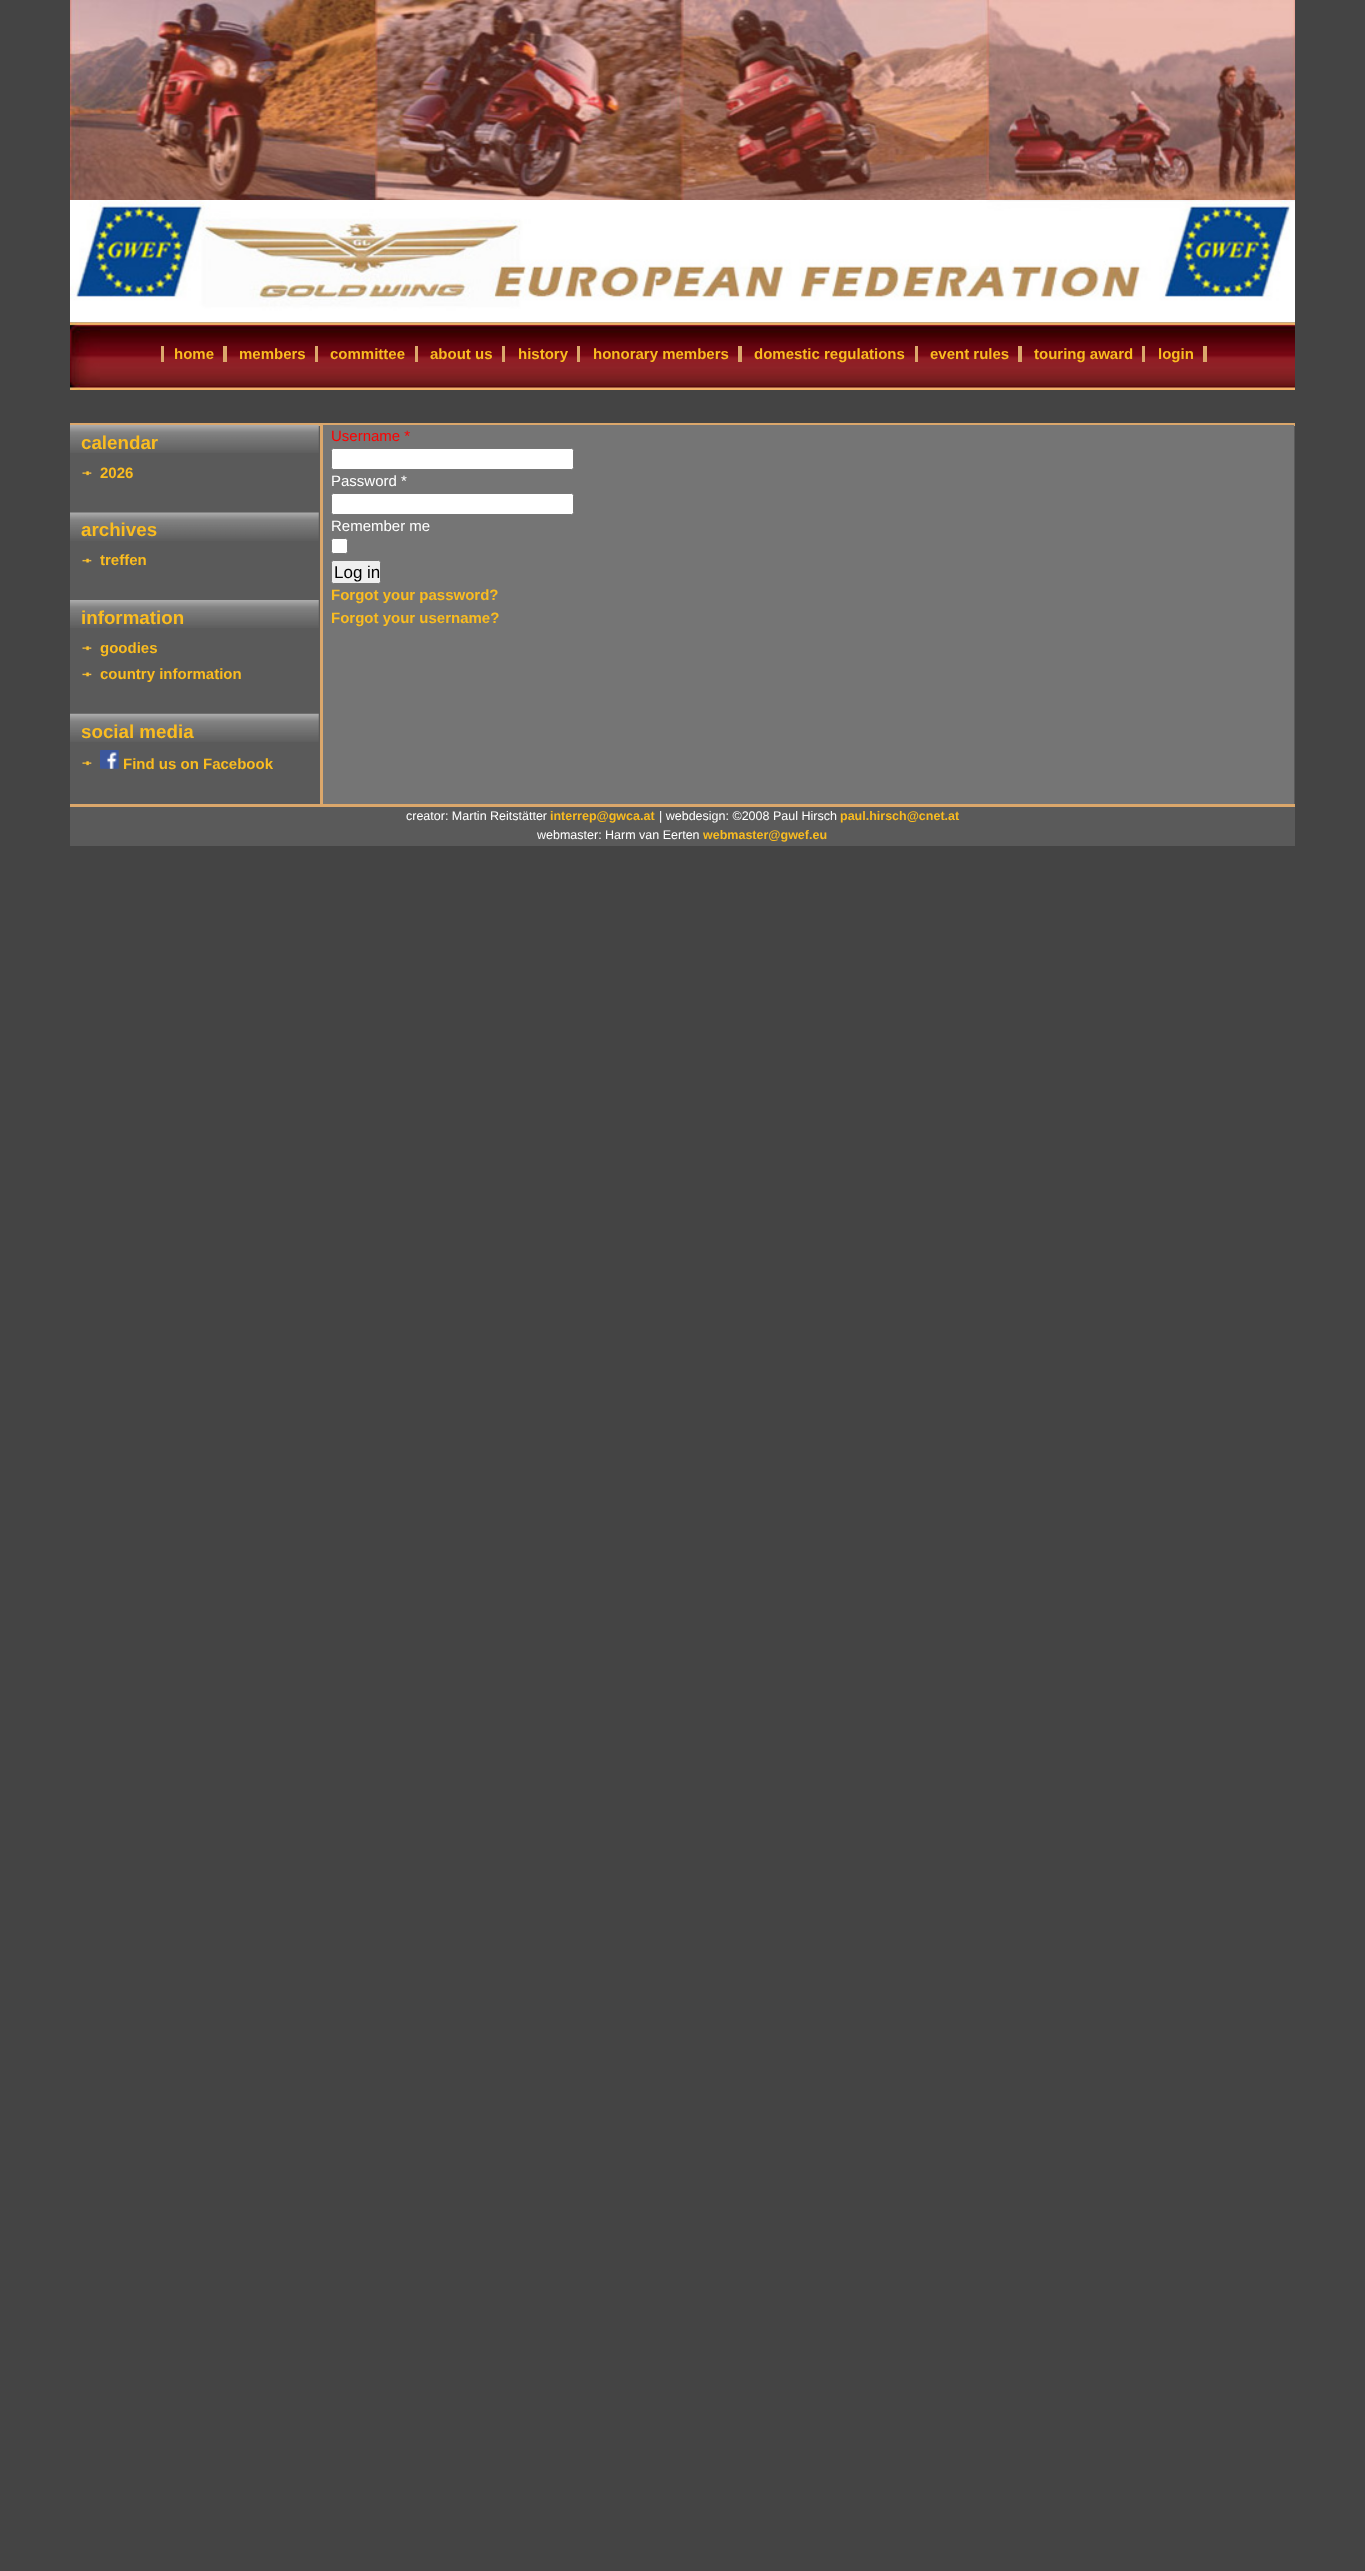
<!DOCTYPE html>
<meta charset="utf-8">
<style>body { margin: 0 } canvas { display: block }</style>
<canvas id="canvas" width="1365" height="2571"></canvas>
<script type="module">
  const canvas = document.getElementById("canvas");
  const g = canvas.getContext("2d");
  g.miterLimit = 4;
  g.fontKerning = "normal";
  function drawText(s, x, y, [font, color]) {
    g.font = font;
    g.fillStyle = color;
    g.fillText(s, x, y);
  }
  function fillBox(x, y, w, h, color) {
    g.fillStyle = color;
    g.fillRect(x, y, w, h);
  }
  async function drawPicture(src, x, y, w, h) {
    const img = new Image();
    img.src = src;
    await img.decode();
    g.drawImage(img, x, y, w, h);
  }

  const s1 = ["bold 15px Liberation Sans", "#FABC20"];
  const s2 = ["bold 18.75px Liberation Sans", "#FABC20"];
  const s3 = ["15px Liberation Sans", "#FF0000"];
  const s4 = ["15px Liberation Sans", "#FFFFFF"];
  const s5 = ["17px Liberation Sans", "#000000"];
  const s6 = ["12.5px Liberation Sans", "#FFFFFF"];
  const s7 = ["bold 12.5px Liberation Sans", "#FABC20"];

  fillBox(0, 0, 1365, 2571, "#444444");
  await drawPicture("pic1.png", 70, 0, 1225, 200);
  await drawPicture("pic2.png", 70, 200, 1225, 123);
  await drawPicture("pic3.png", 70, 322, 1225, 68);
  drawText("home", 174, 359, s1);
  fillBox(161, 346, 3, 16, "#DBA76B");
  fillBox(223, 346, 4, 16, "#DBA76B");
  drawText("members", 239, 359, s1);
  fillBox(315, 346, 3, 16, "#DBA76B");
  drawText("committee", 330, 359, s1);
  fillBox(415, 346, 3, 16, "#DBA76B");
  drawText("about us", 430, 359, s1);
  fillBox(502, 346, 3, 16, "#DBA76B");
  drawText("history", 518, 359, s1);
  fillBox(577, 346, 3, 16, "#DBA76B");
  drawText("honorary members", 593, 359, s1);
  fillBox(738, 346, 4, 16, "#DBA76B");
  drawText("domestic regulations", 754, 359, s1);
  drawText("event rules", 930, 359, s1);
  fillBox(915, 346, 3, 16, "#DBA76B");
  fillBox(1018, 346, 4, 16, "#DBA76B");
  drawText("touring award", 1034, 359, s1);
  fillBox(1142, 346, 3, 16, "#DBA76B");
  drawText("login", 1158, 359, s1);
  fillBox(1203, 346, 4, 16, "#DBA76B");
  fillBox(70, 426, 1225, 378, "#5A5A5A");
  fillBox(70, 423, 1225, 3, "#DBA76B");
  fillBox(70, 804, 1225, 3, "#DBA76B");
  await drawPicture("pic4.png", 70, 425, 249, 28);
  drawText("calendar", 81, 449, s2);
  await drawPicture("pic5.png", 82, 471, 10, 5);
  drawText("2026", 100, 478, s1);
  await drawPicture("pic6.png", 70, 512, 249, 29);
  drawText("archives", 81, 536, s2);
  await drawPicture("pic7.png", 82, 558, 10, 5);
  drawText("treffen", 100, 565, s1);
  await drawPicture("pic8.png", 70, 600, 249, 28);
  drawText("information", 81, 624, s2);
  await drawPicture("pic5.png", 82, 646, 10, 5);
  drawText("goodies", 100, 653, s1);
  await drawPicture("pic9.png", 82, 672, 10, 5);
  drawText("country information", 100, 679, s1);
  await drawPicture("pic10.png", 70, 713, 249, 29);
  drawText("social media", 81, 738, s2);
  await drawPicture("pic5.png", 82, 761, 10, 5);
  await drawPicture("pic11.png", 100, 750, 19, 19);
  drawText("Find us on Facebook", 123, 769, s1);
  fillBox(323, 425, 971, 379, "#757575");
  fillBox(320, 425, 3, 379, "#DBA76B");
  drawText("Username *", 331, 441, s3);
  g.fillStyle = "#FFFFFF";
  g.beginPath();
  g.roundRect(331.5, 448.5, 242, 21, 2);
  g.fill();
  g.strokeStyle = "#767676";
  g.stroke();
  drawText("Password *", 331, 486, s4);
  g.beginPath();
  g.roundRect(331.5, 493.5, 242, 21, 2);
  g.fill();
  g.stroke();
  drawText("Remember me", 331, 531, s4);
  g.beginPath();
  g.roundRect(331.5, 538.5, 16, 15, 2);
  g.fill();
  g.stroke();
  g.fillStyle = "#EFEFEF";
  g.beginPath();
  g.roundRect(331.5, 560.5, 49, 23, 2);
  g.fill();
  g.stroke();
  drawText("Log in", 334, 578, s5);
  drawText("Forgot your password?", 331, 600, s1);
  drawText("Forgot your username?", 331, 623, s1);
  fillBox(70, 807, 1225, 39, "#5A5A5A");
  drawText("creator: Martin Reitstätter", 406, 820, s6);
  drawText("interrep@gwca.at", 550, 820, s7);
  drawText("| webdesign: ©2008 Paul Hirsch", 659, 820, s6);
  drawText("paul.hirsch@cnet.at", 840, 820, s7);
  drawText("webmaster: Harm van Eerten", 537, 839, s6);
  drawText("webmaster@gwef.eu", 703, 839, s7);
</script>
